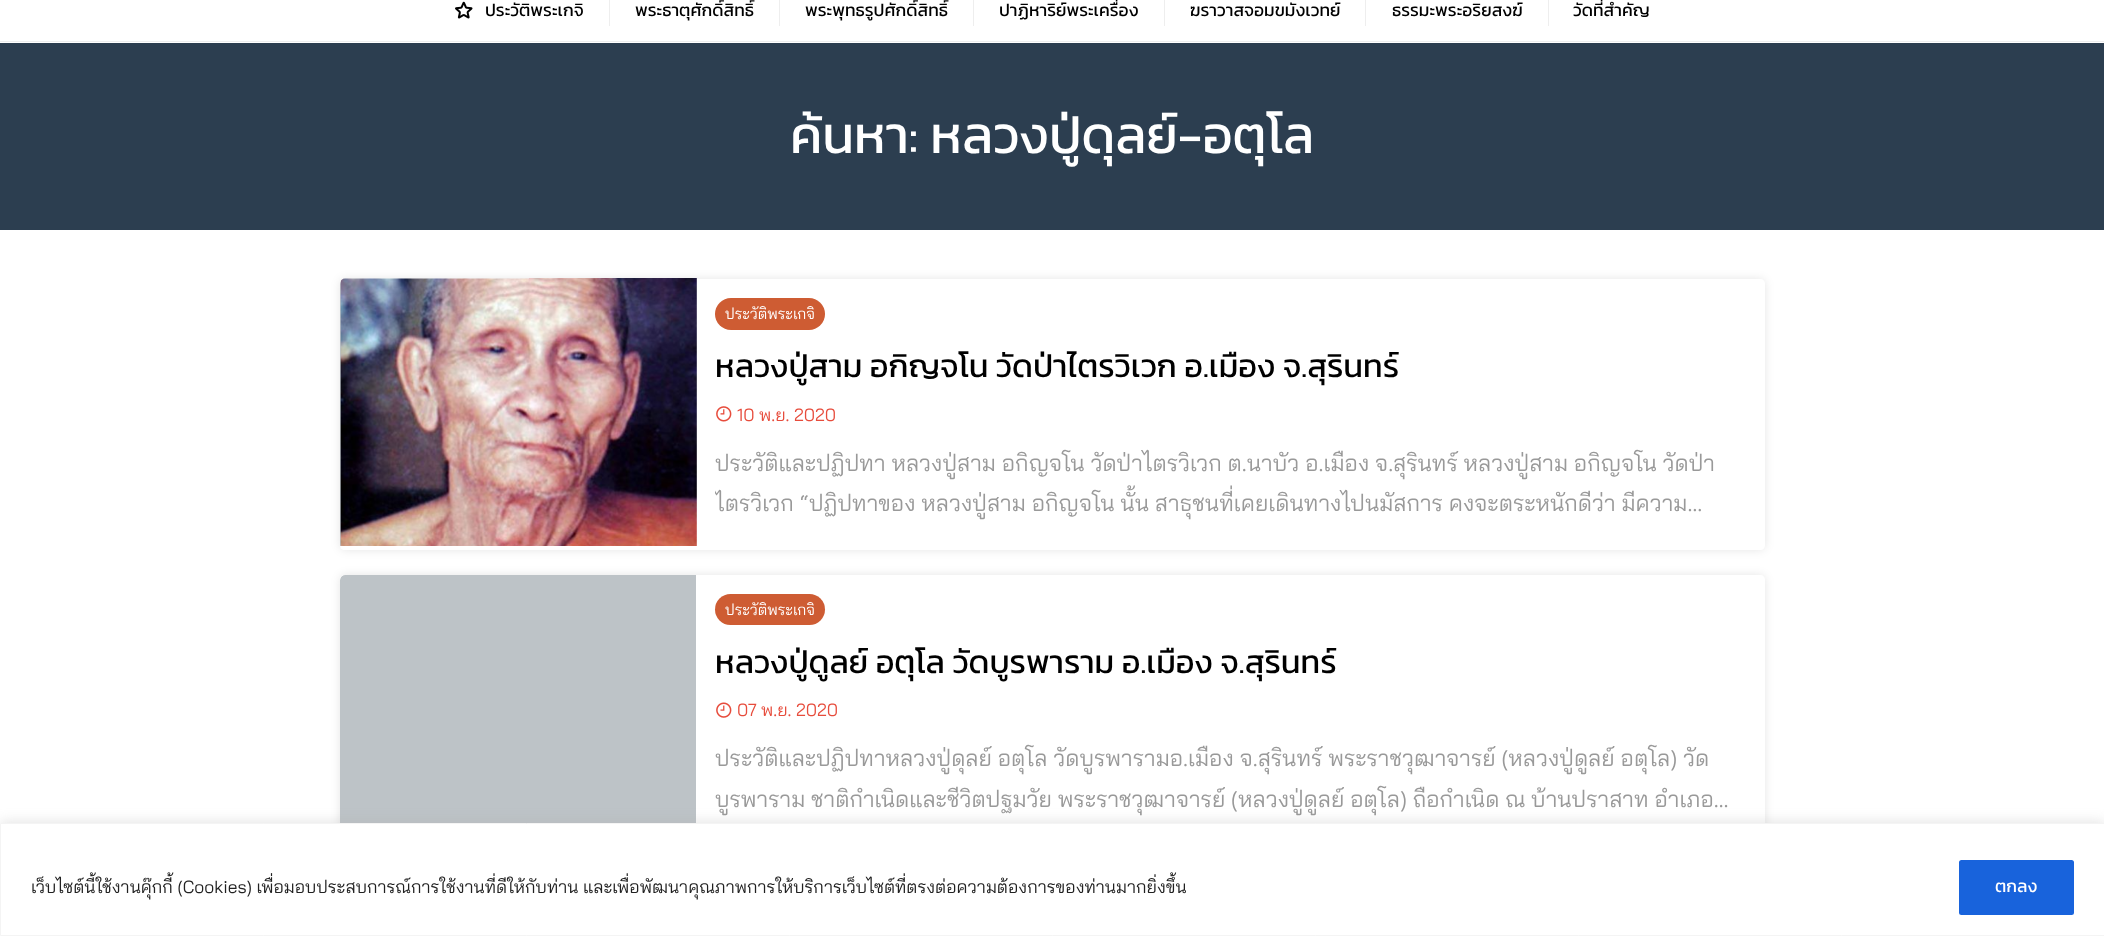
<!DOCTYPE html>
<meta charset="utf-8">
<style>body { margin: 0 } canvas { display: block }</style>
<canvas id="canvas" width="2104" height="936"></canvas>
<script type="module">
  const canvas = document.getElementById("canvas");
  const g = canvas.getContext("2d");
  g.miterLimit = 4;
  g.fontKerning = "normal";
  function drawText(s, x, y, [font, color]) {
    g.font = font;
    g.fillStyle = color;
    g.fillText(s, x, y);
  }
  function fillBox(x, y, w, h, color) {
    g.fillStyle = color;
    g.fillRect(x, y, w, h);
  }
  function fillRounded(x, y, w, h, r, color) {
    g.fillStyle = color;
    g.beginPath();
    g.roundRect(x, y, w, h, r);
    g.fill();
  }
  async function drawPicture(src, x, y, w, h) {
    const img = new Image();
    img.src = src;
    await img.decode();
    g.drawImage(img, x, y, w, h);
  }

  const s1 = ["17.5px Kanit", "#000000"];
  const s2 = ["52.5px Kanit", "#FFFFFF"];
  const s3 = ["15px Bai Jamjuree", "#FFFFFF"];
  const s4 = ["32.5px Kanit", "#000000"];
  const s5 = ["17.5px Bai Jamjuree", "#E74C3C"];
  const s6 = ["22.5px Bai Jamjuree", "#999999"];
  const s7 = ["17.5px Bai Jamjuree", "#212121"];
  const s8 = ["17.5px Kanit", "#FFFFFF"];

  fillBox(0, 0, 2104, 936, "#FFFFFF");
  fillBox(0, 41, 2104, 1, "#EEEEEE");
  fillBox(609, 0, 1, 26, "#EEEEEE");
  await drawPicture("pic1.png", 455, 1, 18, 18);
  drawText("ประวัติพระเกจิ", 485, 16, s1);
  fillBox(779, 0, 1, 26, "#EEEEEE");
  drawText("พระธาตุศักดิ์สิทธิ์", 635, 16, s1);
  fillBox(973, 0, 1, 26, "#EEEEEE");
  drawText("พระพุทธรูปศักดิ์สิทธิ์", 805, 16, s1);
  fillBox(1164, 0, 1, 26, "#EEEEEE");
  drawText("ปาฏิหาริย์พระเครื่อง", 999, 16, s1);
  fillBox(1365, 0, 1, 26, "#EEEEEE");
  drawText("ฆราวาสจอมขมังเวทย์", 1190, 16, s1);
  fillBox(1548, 0, 1, 26, "#EEEEEE");
  drawText("ธรรมะพระอริยสงฆ์", 1392, 16, s1);
  drawText("วัดที่สําคัญ", 1573, 16, s1);
  fillBox(0, 43, 2104, 187, "#2C3E50");
  drawText("ค้นหา: หลวงปู่ดุลย์-อตุโล", 790, 153, s2);
  g.save();
  g.beginPath();
  g.moveTo(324, 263);
  g.lineTo(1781, 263);
  g.lineTo(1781, 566);
  g.lineTo(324, 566);
  g.closePath();
  g.moveTo(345, 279);
  g.lineTo(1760, 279);
  g.bezierCurveTo(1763, 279, 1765, 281, 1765, 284);
  g.lineTo(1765, 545);
  g.bezierCurveTo(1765, 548, 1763, 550, 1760, 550);
  g.lineTo(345, 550);
  g.bezierCurveTo(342, 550, 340, 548, 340, 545);
  g.lineTo(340, 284);
  g.bezierCurveTo(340, 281, 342, 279, 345, 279);
  g.closePath();
  g.clip("evenodd");
  g.fillStyle = "rgba(0, 0, 0, 0.1)";
  g.filter = "blur(5px)";
  g.beginPath();
  g.roundRect(340, 279, 1425, 271, 5);
  g.fill();
  g.filter = "none";
  g.restore();
  g.save();
  g.beginPath();
  g.roundRect(340, 279, 1425, 271, 5);
  g.clip();
  g.fillStyle = "#BDC3C7";
  g.beginPath();
  g.roundRect(340, 279, 356, 267, [5, 0, 0, 0]);
  g.fill();
  g.restore();
  await drawPicture("pic2.png", 340, 278, 357, 268);
  fillRounded(715, 298, 110, 32, 16, "#CE5C33");
  drawText("ประวัติพระเกจิ", 725, 319, s3);
  drawText("หลวงปู่สาม อกิญจโน วัดป่าไตรวิเวก อ.เมือง จ.สุรินทร์", 715, 377, s4);
  await drawPicture("pic3.png", 716, 406, 16, 16);
  drawText("10 พ.ย. 2020", 737, 421, s5);
  drawText("ประวัติและปฏิปทา หลวงปู่สาม อกิญจโน วัดป่าไตรวิเวก ต.นาบัว อ.เมือง จ.สุรินทร์ หลวงปู่สาม อกิญจโน วัดป่า", 715, 471, s6);
  g.save();
  g.beginPath();
  g.rect(715, 444, 1031, 80);
  g.clip();
  drawText("ไตรวิเวก", 715, 511, s6);
  g.restore();
  drawText("“ปฏิปทาของ หลวงปู่สาม อกิญจโน นั้น สาธุชนที่เคยเดินทางไปนมัสการ คงจะตระหนักดีว่า มีความ…", 800, 511, s6);
  g.save();
  g.beginPath();
  g.moveTo(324, 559);
  g.lineTo(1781, 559);
  g.lineTo(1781, 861);
  g.lineTo(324, 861);
  g.closePath();
  g.moveTo(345, 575);
  g.lineTo(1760, 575);
  g.bezierCurveTo(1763, 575, 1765, 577, 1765, 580);
  g.lineTo(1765, 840);
  g.bezierCurveTo(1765, 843, 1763, 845, 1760, 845);
  g.lineTo(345, 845);
  g.bezierCurveTo(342, 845, 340, 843, 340, 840);
  g.lineTo(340, 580);
  g.bezierCurveTo(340, 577, 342, 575, 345, 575);
  g.closePath();
  g.clip("evenodd");
  g.fillStyle = "rgba(0, 0, 0, 0.1)";
  g.filter = "blur(5px)";
  g.beginPath();
  g.roundRect(340, 575, 1425, 270, 5);
  g.fill();
  g.filter = "none";
  g.restore();
  g.save();
  g.beginPath();
  g.roundRect(340, 575, 1425, 270, 5);
  g.clip();
  g.fillStyle = "#BDC3C7";
  g.beginPath();
  g.roundRect(340, 575, 356, 268, [5, 0, 0, 0]);
  g.fill();
  g.restore();
  fillRounded(715, 594, 110, 31, 15.5, "#CE5C33");
  drawText("ประวัติพระเกจิ", 725, 615, s3);
  drawText("หลวงปู่ดูลย์ อตุโล วัดบูรพาราม อ.เมือง จ.สุรินทร์", 715, 673, s4);
  await drawPicture("pic4.png", 716, 702, 16, 16);
  drawText("07 พ.ย. 2020", 737, 716, s5);
  drawText("ประวัติและปฏิปทาหลวงปู่ดุลย์ อตุโล วัดบูรพารามอ.เมือง จ.สุรินทร์ พระราชวุฒาจารย์ (หลวงปู่ดูลย์ อตุโล) วัด", 715, 766, s6);
  g.save();
  g.beginPath();
  g.rect(715, 739, 1031, 81);
  g.clip();
  drawText("บูรพาราม", 715, 807, s6);
  g.restore();
  drawText("ชาติกําเนิดและชีวิตปฐมวัย พระราชวุฒาจารย์ (หลวงปู่ดูลย์ อตุโล) ถือกําเนิด ณ บ้านปราสาท อําเภอ…", 811, 807, s6);
  g.fillStyle = "rgba(172, 171, 171, 0.3)";
  g.filter = "blur(6px)";
  g.beginPath();
  g.rect(0, 821, 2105, 114);
  g.fill();
  g.filter = "none";
  g.fillStyle = "#FFFFFF";
  g.beginPath();
  g.rect(0.5, 823.5, 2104, 112);
  g.fill();
  g.strokeStyle = "#F4F4F4";
  g.stroke();
  drawText("เว็บไซต์นี้ใช้งานคุ๊กกี้ (Cookies) เพื่อมอบประสบการณ์การใช้งานที่ดีให้กับท่าน และเพื่อพัฒนาคุณภาพการให้บริการเว็บไซต์ที่ตรงต่อความต้องการของท่านมากยิ่งขึ้น", 31, 893, s7);
  g.fillStyle = "#1863DC";
  g.beginPath();
  g.roundRect(1960.5, 861.5, 112, 52, 1);
  g.fill();
  g.strokeStyle = "#1863DC";
  g.lineWidth = 3;
  g.stroke();
  drawText("ตกลง", 1995, 892, s8);
</script>
